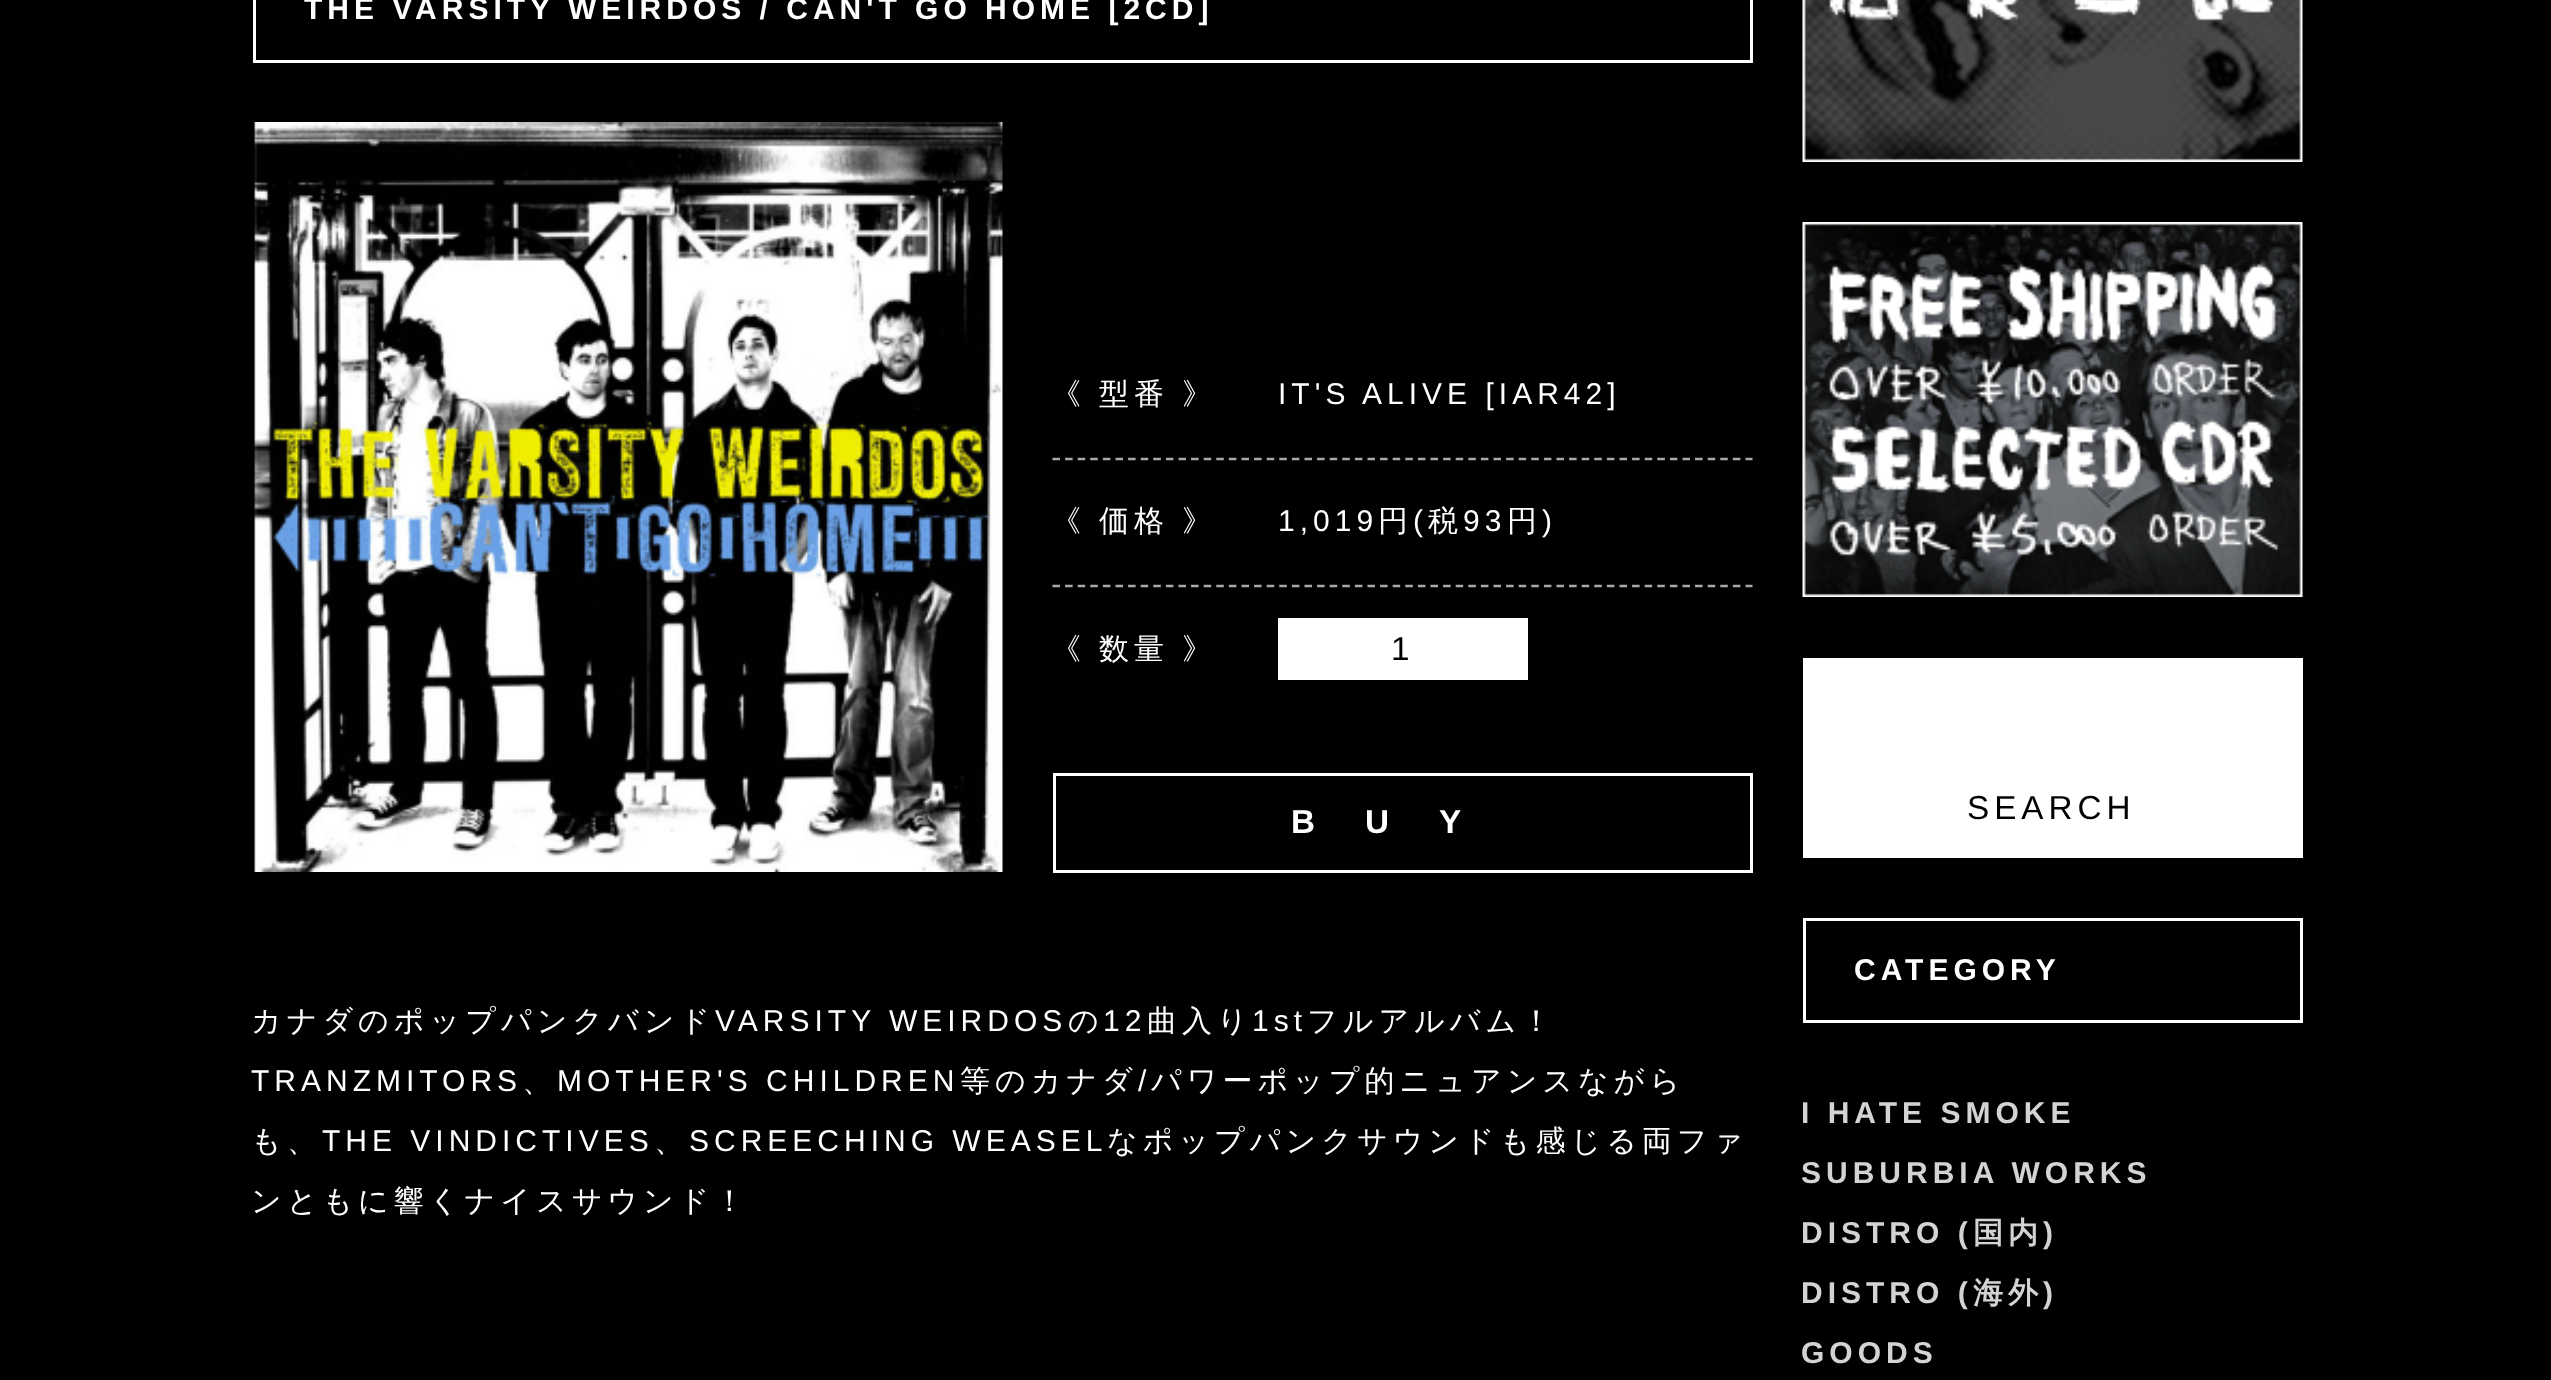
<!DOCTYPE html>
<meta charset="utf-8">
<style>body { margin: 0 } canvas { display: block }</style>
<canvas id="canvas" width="2551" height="1380"></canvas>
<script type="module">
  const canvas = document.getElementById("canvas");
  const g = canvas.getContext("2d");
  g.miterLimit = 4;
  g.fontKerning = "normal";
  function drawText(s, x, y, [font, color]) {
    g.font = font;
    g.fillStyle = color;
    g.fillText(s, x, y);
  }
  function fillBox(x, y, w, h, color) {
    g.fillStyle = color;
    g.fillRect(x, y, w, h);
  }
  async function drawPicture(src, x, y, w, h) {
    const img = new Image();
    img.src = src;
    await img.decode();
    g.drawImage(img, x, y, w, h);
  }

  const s1 = ["bold 30px Liberation Sans", "#FFFFFF"];
  const s2 = ["500 30px WenQuanYi Zen Hei", "#FFFFFF"];
  const s3 = ["30px Liberation Sans", "#FFFFFF"];
  const s4 = ["33.25px Liberation Sans", "#000000"];
  const s5 = ["bold 33.25px Liberation Sans", "#FFFFFF"];
  const s6 = ["bold 30px Liberation Sans", "#D3D3D3"];
  const s7 = ["bold 30px WenQuanYi Zen Hei", "#D3D3D3"];

  fillBox(0, 0, 2551, 1380, "#000000");
  g.strokeStyle = "#FFFFFF";
  g.lineWidth = 3;
  g.strokeRect(254.5, -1.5, 1497, 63);
  g.letterSpacing = "5px";
  drawText("THE VARSITY WEIRDOS / CAN'T GO HOME [2CD]", 304, 19, s1);
  await drawPicture("pic1.png", 254, 122, 749, 750);
  g.wordSpacing = "-1px";
  drawText("《 型番 》", 1051, 404, s2);
  g.wordSpacing = "0px";
  drawText("IT'S ALIVE [IAR42]", 1278, 404, s3);
  g.beginPath();
  g.moveTo(1052.5, 459);
  g.lineTo(1752.5, 459);
  g.strokeStyle = "#A9A9A9";
  g.lineWidth = 2.5;
  g.setLineDash([7.5, 5.1]);
  g.stroke();
  g.wordSpacing = "-1px";
  drawText("《 価格 》", 1051, 531, s2);
  g.wordSpacing = "0px";
  drawText("1,019", 1278, 531, s3);
  drawText("円", 1378, 531, s2);
  drawText("(", 1413, 531, s3);
  drawText("税", 1428, 531, s2);
  drawText("93", 1463, 531, s3);
  drawText("円", 1507, 531, s2);
  drawText(")", 1542, 531, s3);
  g.beginPath();
  g.moveTo(1052.5, 586);
  g.lineTo(1752.5, 586);
  g.stroke();
  g.wordSpacing = "-1px";
  drawText("《 数量 》", 1051, 659, s2);
  fillBox(1278, 618, 250, 62, "#FFFFFF");
  g.wordSpacing = "0px";
  drawText("1", 1391, 660, s4);
  g.strokeStyle = "#FFFFFF";
  g.lineWidth = 3;
  g.setLineDash([]);
  g.strokeRect(1054.5, 774.5, 697, 97);
  g.letterSpacing = "50px";
  drawText("BUY", 1291, 833, s5);
  g.letterSpacing = "5px";
  drawText("カナダのポップパンクバンド", 251, 1031, s2);
  drawText("VARSITY WEIRDOS", 715, 1031, s3);
  drawText("の", 1068, 1031, s2);
  drawText("12", 1103, 1031, s3);
  drawText("曲入り", 1147, 1031, s2);
  drawText("1st", 1252, 1031, s3);
  drawText("フルアルバム！", 1307, 1031, s2);
  drawText("TRANZMITORS", 251, 1091, s3);
  drawText("、", 522, 1091, s2);
  drawText("MOTHER'S CHILDREN", 557, 1091, s3);
  drawText("等のカナダ", 960, 1091, s2);
  drawText("/", 1138, 1091, s3);
  drawText("パワーポップ的ニュアンスながら", 1151, 1091, s2);
  drawText("も、", 251, 1151, s2);
  drawText("THE VINDICTIVES", 322, 1151, s3);
  drawText("、", 654, 1151, s2);
  drawText("SCREECHING WEASEL", 689, 1151, s3);
  drawText("なポップパンクサウンドも感じる両ファ", 1107, 1151, s2);
  drawText("ンともに響くナイスサウンド！", 251, 1211, s2);
  await drawPicture("pic2.png", 1802, 0, 501, 162);
  await drawPicture("pic3.png", 1802, 222, 501, 375);
  fillBox(1803, 658, 500, 200, "#FFFFFF");
  drawText("SEARCH", 1967, 819, s4);
  g.strokeRect(1804.5, 919.5, 497, 102);
  drawText("CATEGORY", 1854, 980, s1);
  drawText("I HATE SMOKE", 1801, 1123, s6);
  drawText("SUBURBIA WORKS", 1801, 1183, s6);
  drawText("DISTRO (", 1801, 1243, s6);
  drawText("国内", 1973, 1243, s7);
  drawText(")", 2043, 1243, s6);
  drawText("DISTRO (", 1801, 1303, s6);
  drawText("海外", 1973, 1303, s7);
  drawText(")", 2043, 1303, s6);
  drawText("GOODS", 1801, 1363, s6);
</script>
